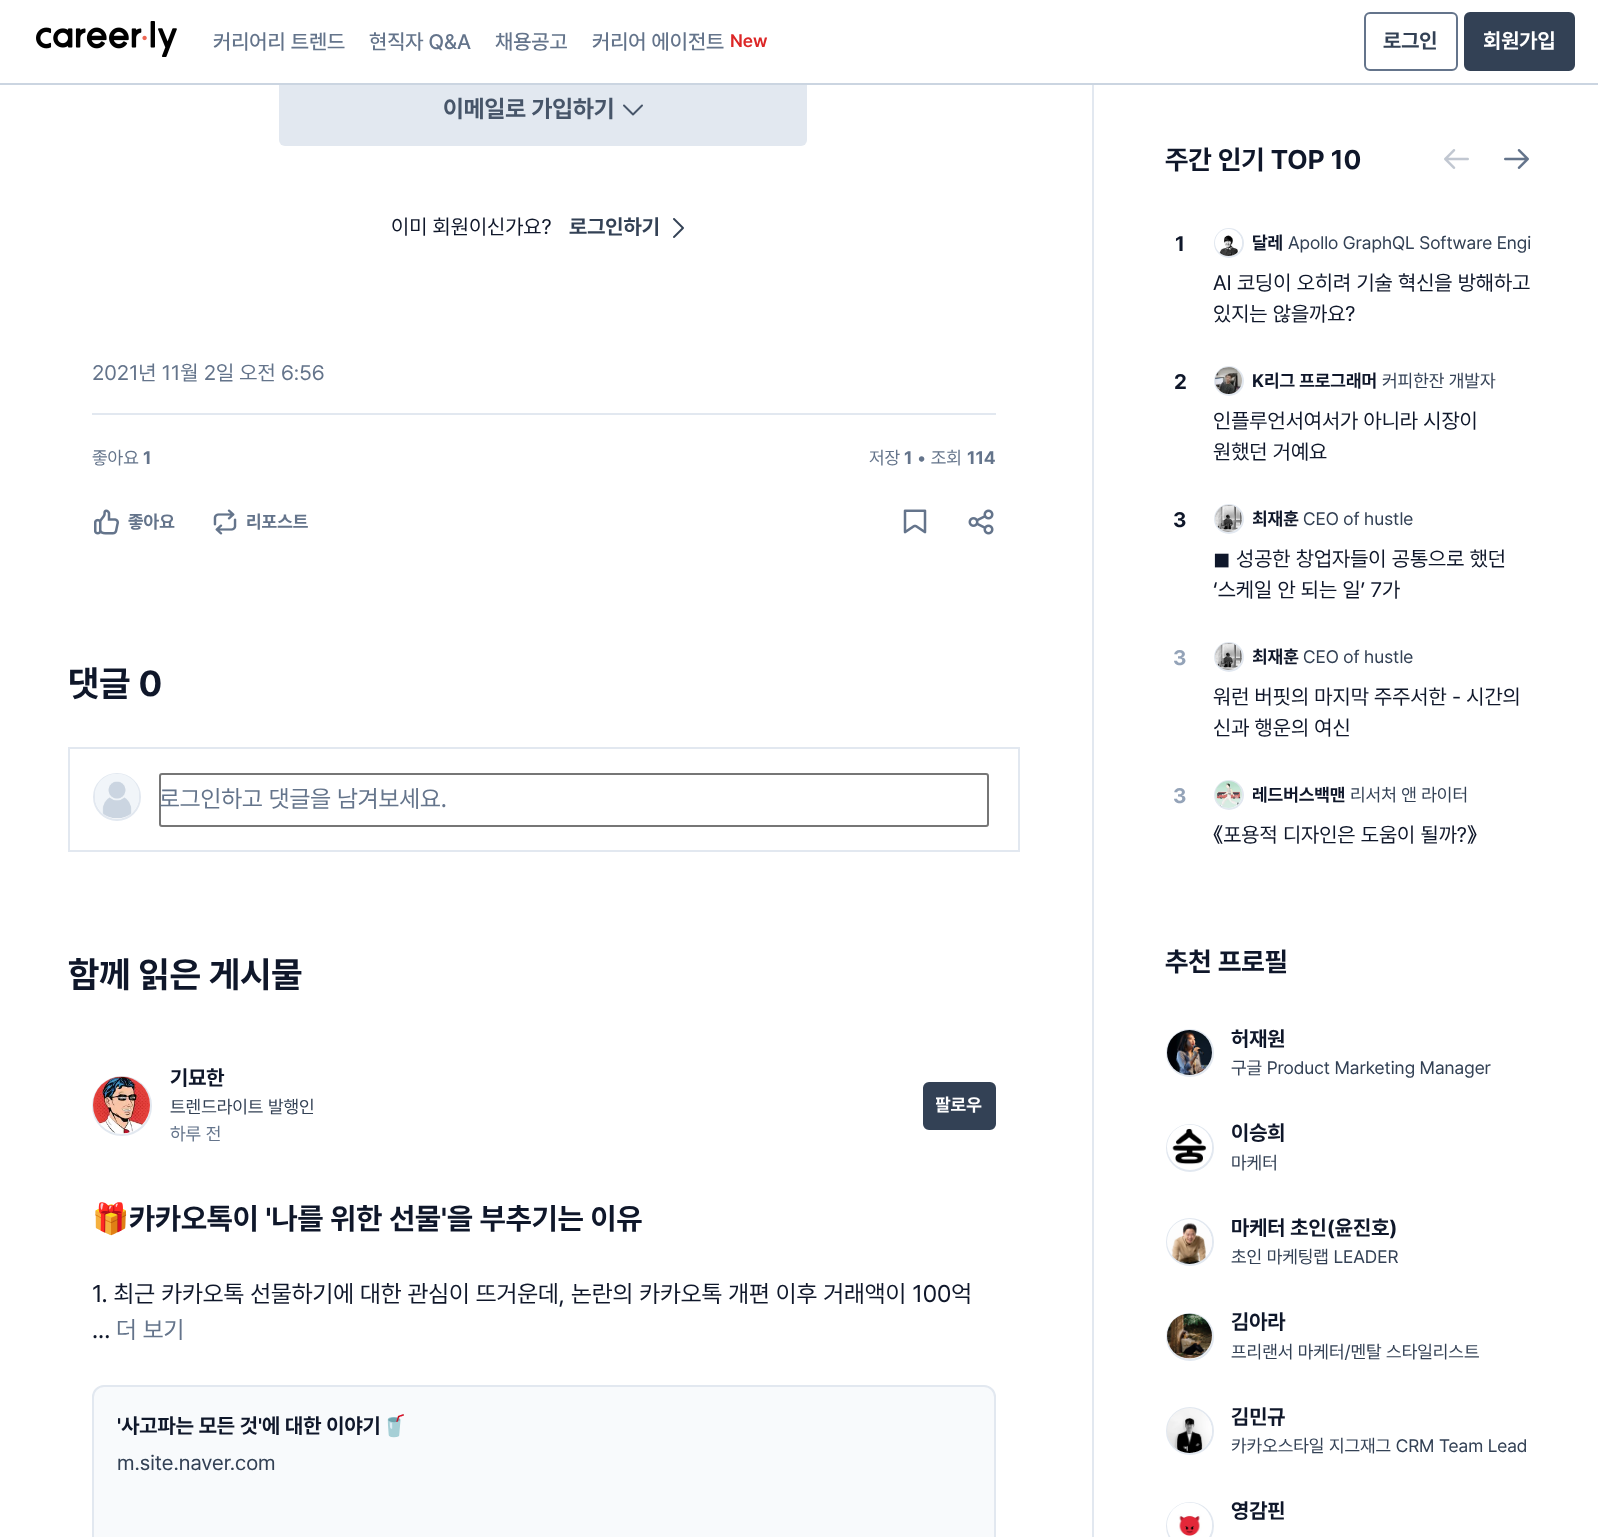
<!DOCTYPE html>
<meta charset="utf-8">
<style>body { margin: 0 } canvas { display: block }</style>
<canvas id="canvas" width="1598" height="1537"></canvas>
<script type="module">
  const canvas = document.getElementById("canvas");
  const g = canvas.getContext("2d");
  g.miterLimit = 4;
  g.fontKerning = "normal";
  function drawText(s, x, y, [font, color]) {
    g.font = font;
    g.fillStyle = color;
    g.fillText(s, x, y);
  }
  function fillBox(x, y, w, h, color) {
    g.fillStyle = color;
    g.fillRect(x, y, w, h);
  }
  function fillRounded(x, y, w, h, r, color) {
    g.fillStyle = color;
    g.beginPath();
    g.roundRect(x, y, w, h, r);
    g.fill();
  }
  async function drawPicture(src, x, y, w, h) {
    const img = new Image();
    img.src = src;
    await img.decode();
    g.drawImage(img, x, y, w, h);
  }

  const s1 = ["500 21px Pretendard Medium", "#64748B"];
  const s2 = ["600 18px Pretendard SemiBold", "#DC2626"];
  const s3 = ["bold 21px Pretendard", "#334155"];
  const s4 = ["bold 21px Pretendard", "#FFFFFF"];
  const s5 = ["bold 24px Pretendard", "#475569"];
  const s6 = ["21px Pretendard", "#0F172A"];
  const s7 = ["21px Pretendard", "#64748B"];
  const s8 = ["18px Pretendard", "#64748B"];
  const s9 = ["bold 18px Pretendard", "#64748B"];
  const s10 = ["bold 36px Pretendard", "#0F172A"];
  const s11 = ["24px Pretendard", "#64748B"];
  const s12 = ["bold 21px Pretendard", "#0F172A"];
  const s13 = ["18px Pretendard", "#334155"];
  const s14 = ["bold 18px Pretendard", "#FFFFFF"];
  const s15 = ["bold 30px Noto Color Emoji", "#0F172A"];
  const s16 = ["bold 30px Pretendard", "#0F172A"];
  const s17 = ["24px Pretendard", "#0F172A"];
  const s18 = ["bold 21px Noto Color Emoji", "#0F172A"];
  const s19 = ["21px Pretendard", "#334155"];
  const s20 = ["bold 27px Pretendard", "#0F172A"];
  const s21 = ["bold 18px Pretendard", "#0F172A"];
  const s22 = ["21px DejaVu Sans", "#0F172A"];
  const s23 = ["bold 21px Pretendard", "#94A3B8"];

  fillBox(0, 0, 1598, 1537, "#FFFFFF");
  fillRounded(279, 74, 528, 72, 6, "#E2E8F0");
  fillBox(279, 74, 528, 9, "#FFFFFF");
  fillBox(1092, 84, 2, 1453, "#E2E8F0");
  fillBox(0, 83, 1598, 2, "#CBD5E1");
  await drawPicture("pic1.png", 36, 21, 141, 36);
  drawText("커리어리 트렌드", 213, 49, s1);
  drawText("현직자 Q&A", 369, 49, s1);
  drawText("채용공고", 495, 49, s1);
  drawText("커리어 에이전트", 592, 49, s1);
  drawText("New", 730, 47, s2);
  g.beginPath();
  g.roundRect(1365, 13, 92, 57, 5);
  g.strokeStyle = "#64748B";
  g.lineWidth = 2;
  g.stroke();
  drawText("로그인", 1383, 48, s3);
  g.beginPath();
  g.roundRect(1465, 13, 109, 57, 5);
  g.fill();
  g.strokeStyle = "#334155";
  g.stroke();
  g.save();
  g.beginPath();
  g.rect(1484, 26, 72, 31);
  g.clip();
  drawText("회원가입", 1483, 48, s4);
  g.restore();
  drawText("이메일로 가입하기", 443, 117, s5);
  await drawPicture("pic2.png", 623, 104, 20, 12);
  drawText("이미 회원이신가요?", 391, 234, s6);
  drawText("로그인하기", 569, 234, s3);
  await drawPicture("pic3.png", 673, 218, 11, 20);
  fillBox(92, 413, 904, 2, "#E2E8F0");
  drawText("2021년 11월 2일 오전 6:56", 92, 380, s7);
  drawText("좋아요", 92, 464, s8);
  drawText("1", 143, 464, s9);
  drawText("저장", 869, 464, s8);
  drawText("1", 904, 464, s9);
  drawText("• 조회", 917, 464, s8);
  drawText("114", 967, 464, s9);
  await drawPicture("pic4.png", 94, 509, 25, 26);
  drawText("좋아요", 128, 528, s9);
  await drawPicture("pic5.png", 213, 509, 24, 26);
  drawText("리포스트", 246, 528, s9);
  await drawPicture("pic6.png", 903, 509, 24, 25);
  await drawPicture("pic7.png", 968, 509, 26, 26);
  drawText("댓글 0", 68, 696, s10);
  g.strokeStyle = "#E2E8F0";
  g.strokeRect(69, 748, 950, 103);
  g.beginPath();
  g.arc(117, 797, 23, 0, Math.PI * 2);
  g.stroke();
  await drawPicture("pic8.png", 95, 774, 44, 45);
  g.beginPath();
  g.roundRect(160, 774, 828, 52, 2);
  g.strokeStyle = "#767676";
  g.stroke();
  drawText("로그인하고 댓글을 남겨보세요.", 159, 807, s11);
  drawText("함께 읽은 게시물", 68, 987, s10);
  g.beginPath();
  g.arc(122, 1106, 29, 0, Math.PI * 2);
  g.strokeStyle = "#E2E8F0";
  g.stroke();
  await drawPicture("pic9.png", 93, 1076, 57, 58);
  drawText("기묘한", 170, 1085, s12);
  drawText("트렌드라이트 발행인", 170, 1113, s13);
  drawText("하루 전", 170, 1140, s8);
  g.fillStyle = "#334155";
  g.beginPath();
  g.roundRect(924, 1083, 71, 46, 5);
  g.fill();
  g.strokeStyle = "#334155";
  g.stroke();
  g.save();
  g.beginPath();
  g.rect(936, 1092, 47, 27);
  g.clip();
  drawText("팔로우", 935, 1111, s14);
  g.restore();
  drawText("🎁", 92, 1229, s15);
  drawText("카카오톡이 '나를 위한 선물'을 부추기는 이유", 129, 1229, s16);
  drawText("1. 최근 카카오톡 선물하기에 대한 관심이 뜨거운데, 논란의 카카오톡 개편 이후 거래액이 100억", 92, 1302, s17);
  drawText("...", 92, 1338, s17);
  drawText("더 보기", 116, 1338, s11);
  g.fillStyle = "#F8FAFC";
  g.beginPath();
  g.roundRect(93, 1386, 902, 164, 11);
  g.fill();
  g.strokeStyle = "#E2E8F0";
  g.stroke();
  drawText("'사고파는 모든 것'에 대한 이야기", 117, 1433, s12);
  drawText("🥤", 381, 1433, s18);
  drawText("m.site.naver.com", 117, 1470, s19);
  drawText("주간 인기 TOP 10", 1165, 169, s20);
  await drawPicture("pic10.png", 1444, 149, 25, 20);
  await drawPicture("pic11.png", 1504, 149, 25, 20);
  drawText("1", 1175, 251, s12);
  g.beginPath();
  g.arc(1229, 243, 14, 0, Math.PI * 2);
  g.stroke();
  await drawPicture("pic12.png", 1215, 229, 27, 27);
  drawText("달레", 1252, 249, s21);
  drawText("Apollo GraphQL Software Engi", 1288, 249, s13);
  drawText("AI 코딩이 오히려 기술 혁신을 방해하고", 1213, 290, s6);
  drawText("있지는 않을까요?", 1213, 321, s6);
  drawText("2", 1174, 389, s12);
  g.beginPath();
  g.arc(1229, 381, 14, 0, Math.PI * 2);
  g.stroke();
  await drawPicture("pic13.png", 1215, 367, 27, 27);
  drawText("K리그 프로그래머", 1252, 387, s21);
  drawText("커피한잔 개발자", 1382, 387, s13);
  drawText("인플루언서여서가 아니라 시장이", 1213, 428, s6);
  drawText("원했던 거예요", 1213, 459, s6);
  drawText("3", 1173, 527, s12);
  g.beginPath();
  g.arc(1229, 519, 14, 0, Math.PI * 2);
  g.stroke();
  await drawPicture("pic14.png", 1215, 505, 27, 27);
  g.save();
  g.beginPath();
  g.rect(1253, 506, 279, 27);
  g.clip();
  drawText("최재훈", 1252, 525, s21);
  g.restore();
  drawText("CEO of hustle", 1303, 525, s13);
  drawText("◼︎", 1213, 566, s22);
  drawText("성공한 창업자들이 공통으로 했던", 1236, 566, s6);
  drawText("‘스케일 안 되는 일’ 7가", 1213, 597, s6);
  drawText("3", 1173, 665, s23);
  g.beginPath();
  g.arc(1229, 657, 14, 0, Math.PI * 2);
  g.stroke();
  await drawPicture("pic14.png", 1215, 643, 27, 27);
  g.save();
  g.beginPath();
  g.rect(1253, 644, 279, 27);
  g.clip();
  drawText("최재훈", 1252, 663, s21);
  g.restore();
  drawText("CEO of hustle", 1303, 663, s13);
  drawText("워런 버핏의 마지막 주주서한 - 시간의", 1213, 704, s6);
  drawText("신과 행운의 여신", 1213, 735, s6);
  drawText("3", 1173, 803, s23);
  g.beginPath();
  g.arc(1229, 795, 14, 0, Math.PI * 2);
  g.stroke();
  await drawPicture("pic15.png", 1215, 781, 27, 27);
  g.save();
  g.beginPath();
  g.rect(1253, 782, 225, 27);
  g.clip();
  drawText("레드버스백맨", 1252, 801, s21);
  g.restore();
  drawText("리서처 앤 라이터", 1350, 801, s13);
  drawText("《포용적 디자인은 도움이 될까?》", 1213, 842, s6);
  drawText("추천 프로필", 1165, 971, s20);
  g.beginPath();
  g.arc(1190, 1053, 23, 0, Math.PI * 2);
  g.stroke();
  await drawPicture("pic16.png", 1167, 1030, 45, 45);
  drawText("허재원", 1231, 1046, s12);
  drawText("구글 Product Marketing Manager", 1231, 1074, s13);
  g.beginPath();
  g.arc(1190, 1148, 23, 0, Math.PI * 2);
  g.stroke();
  await drawPicture("pic17.png", 1167, 1124, 45, 43);
  drawText("이승희", 1231, 1140, s12);
  drawText("마케터", 1231, 1169, s13);
  g.beginPath();
  g.arc(1190, 1242, 23, 0, Math.PI * 2);
  g.stroke();
  await drawPicture("pic18.png", 1167, 1219, 45, 45);
  drawText("마케터 초인(윤진호)", 1231, 1235, s12);
  drawText("초인 마케팅랩 LEADER", 1231, 1263, s13);
  g.beginPath();
  g.arc(1190, 1337, 23, 0, Math.PI * 2);
  g.stroke();
  await drawPicture("pic19.png", 1167, 1313, 45, 46);
  drawText("김아라", 1231, 1329, s12);
  drawText("프리랜서 마케터/멘탈 스타일리스트", 1231, 1358, s13);
  g.beginPath();
  g.arc(1190, 1431, 23, 0, Math.PI * 2);
  g.stroke();
  await drawPicture("pic20.png", 1167, 1408, 45, 45);
  drawText("김민규", 1231, 1424, s12);
  drawText("카카오스타일 지그재그 CRM Team Lead", 1231, 1452, s13);
  g.beginPath();
  g.arc(1190, 1526, 23, 0, Math.PI * 2);
  g.stroke();
  await drawPicture("pic21.png", 1167, 1502, 45, 35);
  drawText("영감핀", 1231, 1518, s12);
</script>
